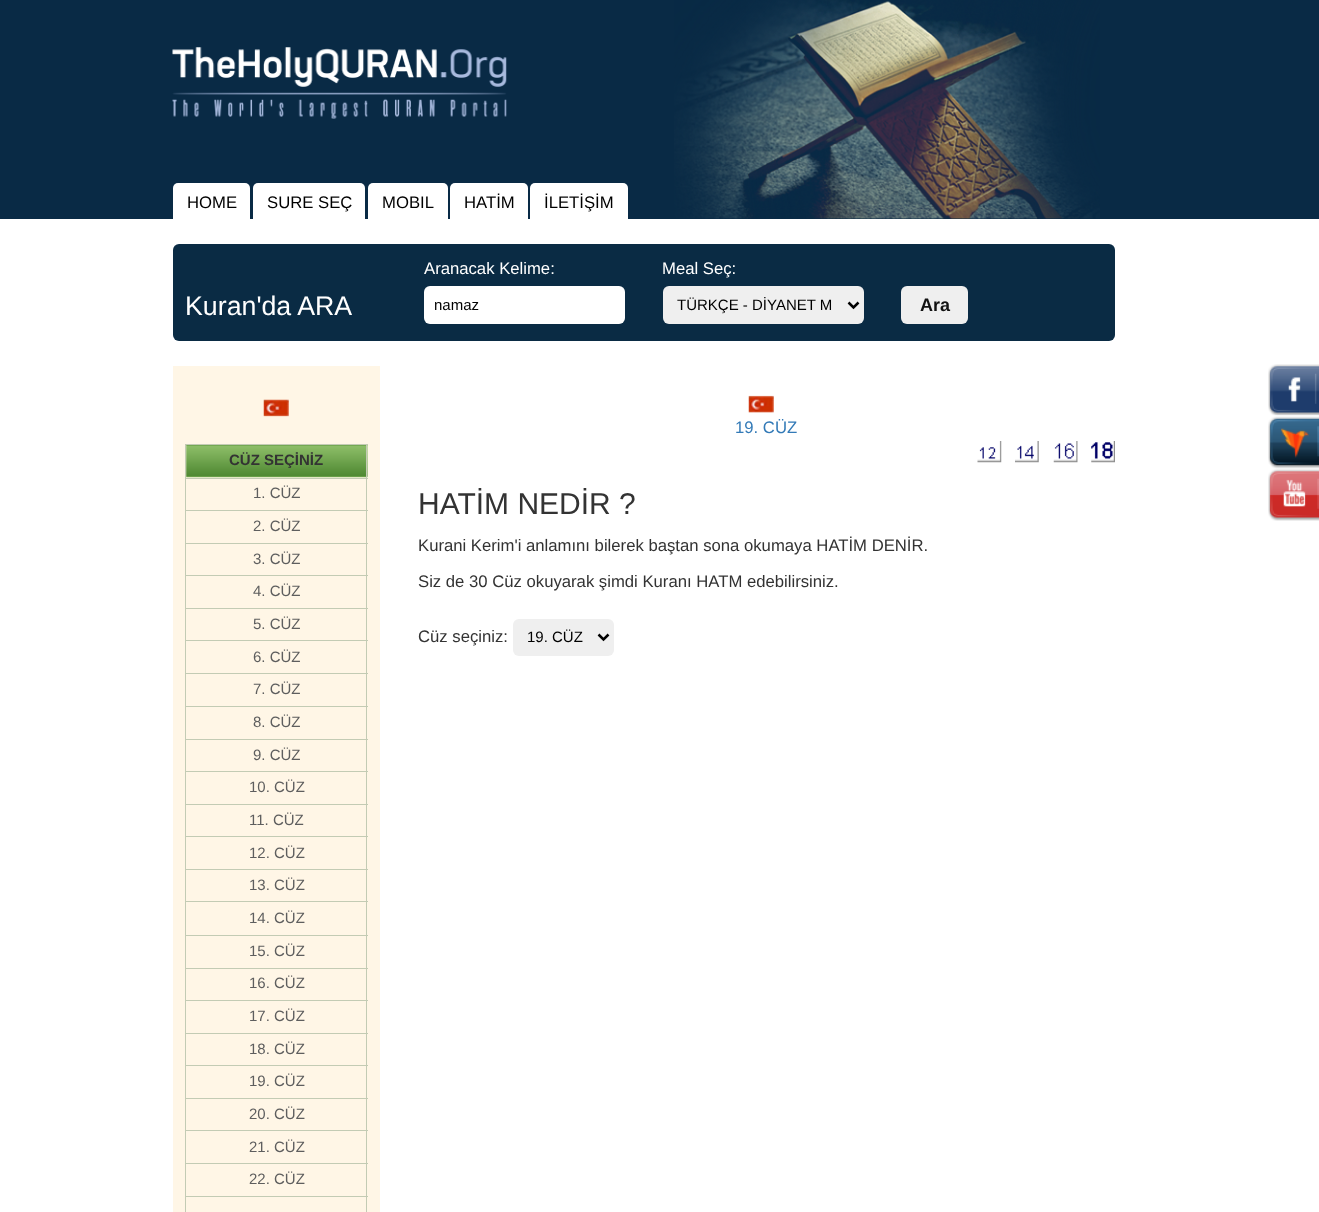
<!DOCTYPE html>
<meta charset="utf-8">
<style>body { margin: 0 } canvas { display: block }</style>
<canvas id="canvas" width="1319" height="1212"></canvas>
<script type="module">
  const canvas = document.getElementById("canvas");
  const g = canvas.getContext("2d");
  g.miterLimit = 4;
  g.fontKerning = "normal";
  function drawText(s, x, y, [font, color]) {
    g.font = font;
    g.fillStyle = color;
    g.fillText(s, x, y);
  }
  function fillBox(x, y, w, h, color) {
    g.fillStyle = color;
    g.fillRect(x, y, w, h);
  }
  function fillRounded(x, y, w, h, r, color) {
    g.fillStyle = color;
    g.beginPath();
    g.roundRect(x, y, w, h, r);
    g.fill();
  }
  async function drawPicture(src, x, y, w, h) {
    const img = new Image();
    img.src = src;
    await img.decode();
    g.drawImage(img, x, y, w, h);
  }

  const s1 = ["16.7px Liberation Sans", "#000000"];
  const s2 = ["26.75px Liberation Sans", "#FFFFFF"];
  const s3 = ["16.7px Liberation Sans", "#FFFFFF"];
  const s4 = ["15px Liberation Sans", "#000000"];
  const s5 = ["bold 18px Liberation Sans", "#121212"];
  const s6 = ["bold 15px Liberation Sans", "#333333"];
  const s7 = ["15px Liberation Sans", "#5E5E5E"];
  const s8 = ["16.7px Liberation Sans", "#337AB7"];
  const s9 = ["30px Liberation Sans", "#333333"];
  const s10 = ["16.7px Liberation Sans", "#333333"];

  fillBox(0, 0, 1319, 1212, "#092A45");
  await drawPicture("pic1.png", 172, 47, 335, 72);
  await drawPicture("pic2.png", 674, 0, 426, 219);
  fillBox(0, 219, 1319, 993, "#FFFFFF");
  g.beginPath();
  g.roundRect(173, 183, 77, 38, [5, 5, 0, 0]);
  g.fill();
  drawText("HOME", 187, 208, s1);
  g.fillStyle = "#FFFFFF";
  g.beginPath();
  g.roundRect(253, 183, 112, 38, [5, 5, 0, 0]);
  g.fill();
  drawText("SURE SEÇ", 267, 208, s1);
  g.fillStyle = "#FFFFFF";
  g.beginPath();
  g.roundRect(368, 183, 80, 38, [5, 5, 0, 0]);
  g.fill();
  drawText("MOBIL", 382, 208, s1);
  g.fillStyle = "#FFFFFF";
  g.beginPath();
  g.roundRect(450, 183, 78, 38, [5, 5, 0, 0]);
  g.fill();
  drawText("HATİM", 464, 208, s1);
  g.fillStyle = "#FFFFFF";
  g.beginPath();
  g.roundRect(530, 183, 98, 38, [5, 5, 0, 0]);
  g.fill();
  drawText("İLETİŞİM", 544, 208, s1);
  fillRounded(173, 244, 942, 97, 6, "#0A2B44");
  drawText("Kuran'da ARA", 185, 315, s2);
  drawText("Aranacak Kelime:", 424, 274, s3);
  fillRounded(424, 286, 201, 38, 6, "#FFFFFF");
  drawText("namaz", 434, 310, s4);
  drawText("Meal Seç:", 662, 274, s3);
  fillRounded(663, 286, 201, 38, 6, "#EFEFEF");
  g.beginPath();
  g.moveTo(848.5, 302.5);
  g.lineTo(853.5, 307.5);
  g.lineTo(858.5, 302.5);
  g.strokeStyle = "#000000";
  g.lineWidth = 2.5;
  g.stroke();
  drawText("TÜRKÇE - DİYANET M", 677, 310, s4);
  fillRounded(901, 286, 67, 38, 6, "#EFEFEF");
  drawText("Ara", 920, 311, s5);
  fillBox(173, 366, 207, 846, "#FFF6E6");
  await drawPicture("pic3.png", 263, 399, 26, 18);
  await drawPicture("pic4.png", 186, 445, 182, 33);
  fillBox(185, 444, 183, 1, "#C3CBB4");
  fillBox(185, 478, 183, 1, "#C3CBB4");
  fillBox(185, 510, 183, 1, "#C3CBB4");
  fillBox(185, 543, 183, 1, "#C3CBB4");
  fillBox(185, 575, 183, 1, "#C3CBB4");
  fillBox(185, 608, 183, 1, "#C3CBB4");
  fillBox(185, 640, 183, 1, "#C3CBB4");
  fillBox(185, 673, 183, 1, "#C3CBB4");
  fillBox(185, 706, 183, 1, "#C3CBB4");
  fillBox(185, 739, 183, 1, "#C3CBB4");
  fillBox(185, 771, 183, 1, "#C3CBB4");
  fillBox(185, 804, 183, 1, "#C3CBB4");
  fillBox(185, 836, 183, 1, "#C3CBB4");
  fillBox(185, 869, 183, 1, "#C3CBB4");
  fillBox(185, 901, 183, 1, "#C3CBB4");
  fillBox(185, 935, 183, 1, "#C3CBB4");
  fillBox(185, 968, 183, 1, "#C3CBB4");
  fillBox(185, 1000, 183, 1, "#C3CBB4");
  fillBox(185, 1033, 183, 1, "#C3CBB4");
  fillBox(185, 1065, 183, 1, "#C3CBB4");
  fillBox(185, 1098, 183, 1, "#C3CBB4");
  fillBox(185, 1130, 183, 1, "#C3CBB4");
  fillBox(185, 1163, 183, 1, "#C3CBB4");
  fillBox(185, 1196, 183, 1, "#C3CBB4");
  fillBox(366, 1196, 1, 16, "#C3CBB4");
  fillBox(366, 1163, 1, 35, "#C3CBB4");
  fillBox(366, 1130, 1, 34, "#C3CBB4");
  fillBox(366, 1098, 1, 33, "#C3CBB4");
  fillBox(366, 1065, 1, 34, "#C3CBB4");
  fillBox(366, 1033, 1, 33, "#C3CBB4");
  fillBox(366, 1000, 1, 34, "#C3CBB4");
  fillBox(366, 968, 1, 33, "#C3CBB4");
  fillBox(366, 935, 1, 34, "#C3CBB4");
  fillBox(366, 901, 1, 35, "#C3CBB4");
  fillBox(366, 869, 1, 34, "#C3CBB4");
  fillBox(366, 836, 1, 34, "#C3CBB4");
  fillBox(366, 804, 1, 34, "#C3CBB4");
  fillBox(366, 771, 1, 34, "#C3CBB4");
  fillBox(366, 739, 1, 34, "#C3CBB4");
  fillBox(366, 706, 1, 34, "#C3CBB4");
  fillBox(366, 673, 1, 35, "#C3CBB4");
  fillBox(366, 640, 1, 34, "#C3CBB4");
  fillBox(366, 608, 1, 33, "#C3CBB4");
  fillBox(366, 575, 1, 34, "#C3CBB4");
  fillBox(366, 543, 1, 33, "#C3CBB4");
  fillBox(366, 510, 1, 34, "#C3CBB4");
  fillBox(366, 478, 1, 33, "#C3CBB4");
  fillBox(366, 444, 1, 35, "#C3CBB4");
  fillBox(185, 1196, 1, 16, "#C3CBB4");
  fillBox(185, 1163, 1, 35, "#C3CBB4");
  fillBox(185, 1130, 1, 34, "#C3CBB4");
  fillBox(185, 1098, 1, 33, "#C3CBB4");
  fillBox(185, 1065, 1, 34, "#C3CBB4");
  fillBox(185, 1033, 1, 33, "#C3CBB4");
  fillBox(185, 1000, 1, 34, "#C3CBB4");
  fillBox(185, 968, 1, 33, "#C3CBB4");
  fillBox(185, 935, 1, 34, "#C3CBB4");
  fillBox(185, 901, 1, 35, "#C3CBB4");
  fillBox(185, 869, 1, 34, "#C3CBB4");
  fillBox(185, 836, 1, 34, "#C3CBB4");
  fillBox(185, 804, 1, 34, "#C3CBB4");
  fillBox(185, 771, 1, 34, "#C3CBB4");
  fillBox(185, 739, 1, 34, "#C3CBB4");
  fillBox(185, 706, 1, 34, "#C3CBB4");
  fillBox(185, 673, 1, 35, "#C3CBB4");
  fillBox(185, 640, 1, 34, "#C3CBB4");
  fillBox(185, 608, 1, 33, "#C3CBB4");
  fillBox(185, 575, 1, 34, "#C3CBB4");
  fillBox(185, 543, 1, 33, "#C3CBB4");
  fillBox(185, 510, 1, 34, "#C3CBB4");
  fillBox(185, 478, 1, 33, "#C3CBB4");
  fillBox(185, 444, 1, 35, "#C3CBB4");
  drawText("CÜZ SEÇİNİZ", 229, 465, s6);
  drawText("1. CÜZ", 253, 498, s7);
  drawText("2. CÜZ", 253, 531, s7);
  drawText("3. CÜZ", 253, 564, s7);
  drawText("4. CÜZ", 253, 596, s7);
  drawText("5. CÜZ", 253, 629, s7);
  drawText("6. CÜZ", 253, 662, s7);
  drawText("7. CÜZ", 253, 694, s7);
  drawText("8. CÜZ", 253, 727, s7);
  drawText("9. CÜZ", 253, 760, s7);
  drawText("10. CÜZ", 249, 792, s7);
  drawText("11. CÜZ", 249, 825, s7);
  drawText("12. CÜZ", 249, 858, s7);
  drawText("13. CÜZ", 249, 890, s7);
  drawText("14. CÜZ", 249, 923, s7);
  drawText("15. CÜZ", 249, 956, s7);
  drawText("16. CÜZ", 249, 988, s7);
  drawText("17. CÜZ", 249, 1021, s7);
  drawText("18. CÜZ", 249, 1054, s7);
  drawText("19. CÜZ", 249, 1086, s7);
  drawText("20. CÜZ", 249, 1119, s7);
  drawText("21. CÜZ", 249, 1152, s7);
  drawText("22. CÜZ", 249, 1184, s7);
  await drawPicture("pic5.png", 748, 395, 26, 18);
  drawText("19. CÜZ", 735, 433, s8);
  await drawPicture("pic6.png", 977, 441, 25, 22);
  await drawPicture("pic7.png", 1015, 441, 24, 22);
  await drawPicture("pic8.png", 1053, 441, 25, 22);
  await drawPicture("pic9.png", 1091, 441, 24, 22);
  drawText("HATİM NEDİR ?", 418, 514, s9);
  drawText("Kurani Kerim'i anlamını bilerek baştan sona okumaya HATİM DENİR.", 418, 551, s10);
  drawText("Siz de 30 Cüz okuyarak şimdi Kuranı HATM edebilirsiniz.", 418, 587, s10);
  drawText("Cüz seçiniz:", 418, 642, s10);
  fillRounded(513, 619, 101, 37, 6, "#EFEFEF");
  g.beginPath();
  g.moveTo(598.5, 634.5);
  g.lineTo(603.5, 639.5);
  g.lineTo(608.5, 634.5);
  g.stroke();
  drawText("19. CÜZ", 527, 642, s4);
  await drawPicture("pic10.png", 1268, 364, 51, 52);
  await drawPicture("pic11.png", 1268, 416, 51, 53);
  await drawPicture("pic12.png", 1268, 469, 51, 52);
</script>
